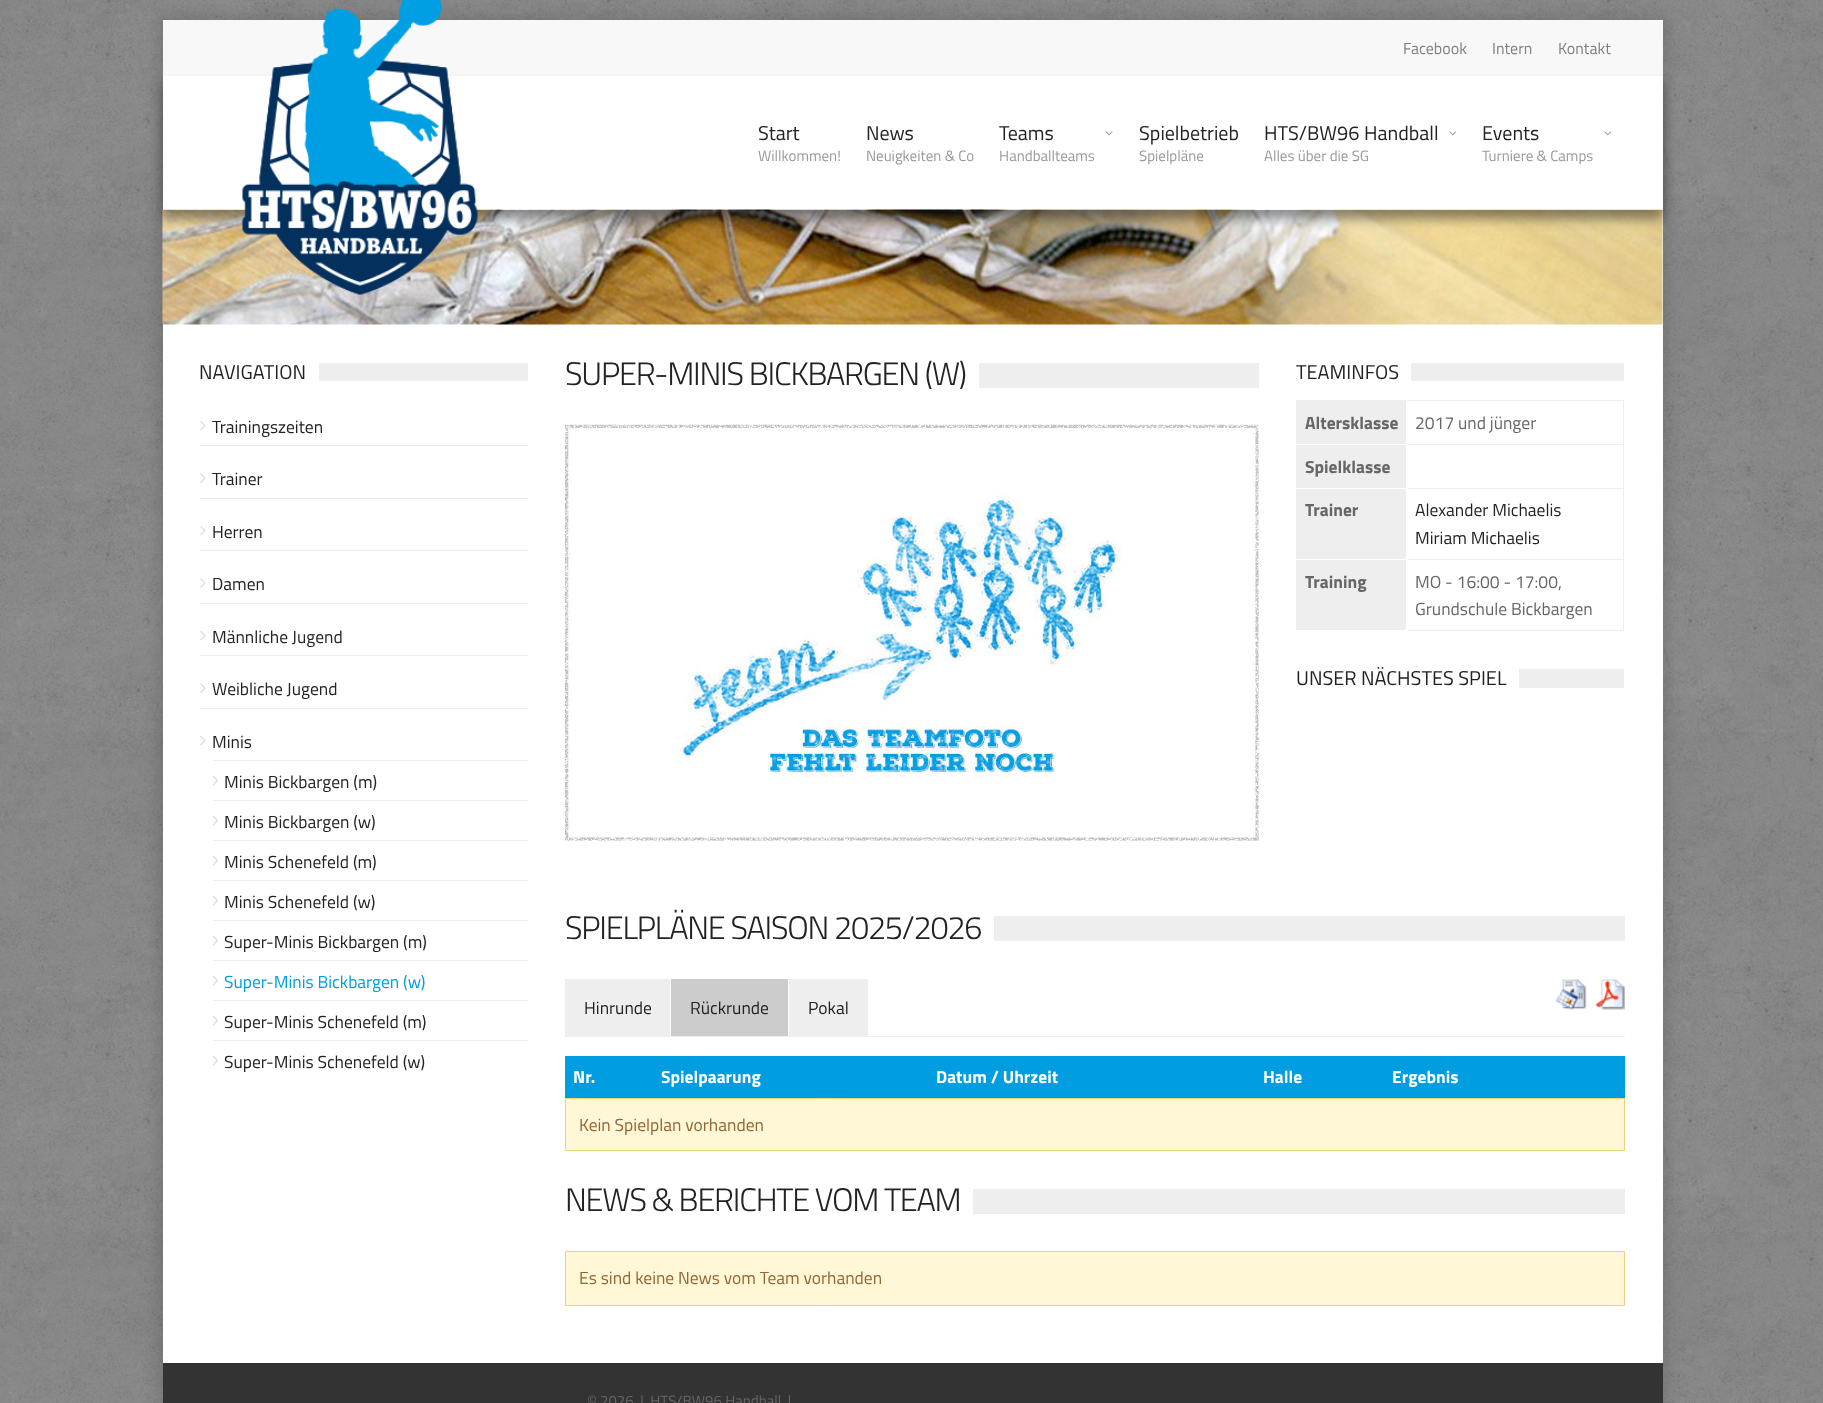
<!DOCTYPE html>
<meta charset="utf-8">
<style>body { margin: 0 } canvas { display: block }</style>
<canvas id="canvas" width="1823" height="1403"></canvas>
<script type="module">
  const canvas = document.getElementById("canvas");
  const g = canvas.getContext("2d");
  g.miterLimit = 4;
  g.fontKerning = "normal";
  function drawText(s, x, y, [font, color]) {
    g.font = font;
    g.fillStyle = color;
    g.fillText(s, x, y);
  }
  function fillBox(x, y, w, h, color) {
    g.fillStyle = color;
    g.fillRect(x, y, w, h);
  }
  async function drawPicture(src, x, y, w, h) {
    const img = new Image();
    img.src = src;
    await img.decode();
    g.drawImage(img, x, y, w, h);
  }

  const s1 = ["16px Titillium Web", "#808080"];
  const s2 = ["20px Titillium Web", "#222222"];
  const s3 = ["15px Titillium Web", "#999999"];
  const s4 = ["17.5px Titillium Web", "#222222"];
  const s5 = ["17.5px Titillium Web", "#009DE0"];
  const s6 = ["300 32.5px Titillium Web", "#222222"];
  const s7 = ["bold 17.5px Titillium Web", "#666666"];
  const s8 = ["17.5px Titillium Web", "#666666"];
  const s9 = ["bold 17.5px Titillium Web", "#FFFFFF"];
  const s10 = ["17.5px Titillium Web", "#956433"];
  const s11 = ["15px Titillium Web", "#666666"];

  fillBox(0, 0, 1823, 1403, "#FFFFFF");
  await drawPicture("pic1.png", 0, 0, 1823, 1403);
  g.fillStyle = "rgba(0, 0, 0, 0.1)";
  g.filter = "blur(6px)";
  g.beginPath();
  g.rect(156, 14, 1513, 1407);
  g.fill();
  g.filter = "none";
  fillBox(163, 76, 1500, 1287, "#FFFFFF");
  fillBox(163, 20, 1500, 56, "#F8F8F8");
  drawText("Facebook", 1403, 54, s1);
  drawText("Intern", 1492, 54, s1);
  drawText("Kontakt", 1558, 54, s1);
  await drawPicture("pic5.png", 162, 209, 1501, 116);
  g.save();
  g.beginPath();
  g.moveTo(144, 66);
  g.lineTo(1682, 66);
  g.lineTo(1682, 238);
  g.lineTo(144, 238);
  g.closePath();
  g.moveTo(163, 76);
  g.lineTo(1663, 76);
  g.lineTo(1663, 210);
  g.lineTo(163, 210);
  g.closePath();
  g.clip("evenodd");
  g.fillStyle = "rgba(34, 34, 34, 0.5)";
  g.filter = "blur(6px)";
  g.beginPath();
  g.rect(163, 85, 1500, 134);
  g.fill();
  g.filter = "none";
  g.restore();
  await drawPicture("pic2.png", 242, 0, 236, 295);
  drawText("Start", 758, 140, s2);
  drawText("Willkommen!", 758, 161, s3);
  drawText("News", 866, 140, s2);
  drawText("Neuigkeiten & Co", 866, 161, s3);
  drawText("Teams", 999, 140, s2);
  await drawPicture("pic3.png", 1105, 131, 8, 5);
  drawText("Handballteams", 999, 161, s3);
  drawText("Spielbetrieb", 1139, 140, s2);
  drawText("Spielpläne", 1139, 161, s3);
  drawText("HTS/BW96 Handball", 1264, 140, s2);
  await drawPicture("pic4.png", 1449, 131, 8, 5);
  drawText("Alles über die SG", 1264, 161, s3);
  drawText("Events", 1482, 140, s2);
  await drawPicture("pic4.png", 1604, 131, 8, 5);
  drawText("Turniere & Camps", 1482, 161, s3);
  fillBox(319, 363, 209, 18, "#EEEEEE");
  drawText("NAVIGATION", 199, 379, s2);
  fillBox(200, 445, 328, 1, "#EEEEEE");
  await drawPicture("pic6.png", 200, 421, 6, 10);
  drawText("Trainingszeiten", 212, 433, s4);
  fillBox(200, 498, 328, 1, "#EEEEEE");
  await drawPicture("pic7.png", 200, 473, 6, 10);
  drawText("Trainer", 212, 485, s4);
  fillBox(200, 550, 328, 1, "#EEEEEE");
  await drawPicture("pic6.png", 200, 526, 6, 10);
  drawText("Herren", 212, 538, s4);
  fillBox(200, 603, 328, 1, "#EEEEEE");
  await drawPicture("pic7.png", 200, 578, 6, 10);
  drawText("Damen", 212, 590, s4);
  fillBox(200, 655, 328, 1, "#EEEEEE");
  await drawPicture("pic6.png", 200, 631, 6, 10);
  drawText("Männliche Jugend", 212, 643, s4);
  fillBox(200, 708, 328, 1, "#EEEEEE");
  await drawPicture("pic7.png", 200, 683, 6, 10);
  drawText("Weibliche Jugend", 212, 695, s4);
  await drawPicture("pic6.png", 200, 736, 6, 10);
  drawText("Minis", 212, 748, s4);
  fillBox(213, 760, 315, 1, "#EEEEEE");
  fillBox(213, 800, 315, 1, "#EEEEEE");
  await drawPicture("pic8.png", 212, 776, 7, 10);
  drawText("Minis Bickbargen (m)", 224, 788, s4);
  fillBox(213, 840, 315, 1, "#EEEEEE");
  await drawPicture("pic8.png", 212, 816, 7, 10);
  drawText("Minis Bickbargen (w)", 224, 828, s4);
  fillBox(213, 880, 315, 1, "#EEEEEE");
  await drawPicture("pic8.png", 212, 856, 7, 10);
  drawText("Minis Schenefeld (m)", 224, 868, s4);
  fillBox(213, 920, 315, 1, "#EEEEEE");
  await drawPicture("pic8.png", 212, 896, 7, 10);
  drawText("Minis Schenefeld (w)", 224, 908, s4);
  fillBox(213, 960, 315, 1, "#EEEEEE");
  await drawPicture("pic8.png", 212, 936, 7, 10);
  drawText("Super-Minis Bickbargen (m)", 224, 948, s4);
  fillBox(213, 1000, 315, 1, "#EEEEEE");
  await drawPicture("pic8.png", 212, 976, 7, 10);
  drawText("Super-Minis Bickbargen (w)", 224, 988, s5);
  fillBox(213, 1040, 315, 1, "#EEEEEE");
  await drawPicture("pic8.png", 212, 1016, 7, 10);
  drawText("Super-Minis Schenefeld (m)", 224, 1028, s4);
  await drawPicture("pic8.png", 212, 1056, 7, 10);
  drawText("Super-Minis Schenefeld (w)", 224, 1068, s4);
  fillBox(979, 363, 280, 25, "#EEEEEE");
  g.letterSpacing = "-1.25px";
  drawText("SUPER-MINIS BICKBARGEN (W)", 565, 385, s6);
  await drawPicture("pic9.png", 565, 424, 694, 417);
  fillBox(1411, 363, 213, 18, "#EEEEEE");
  g.letterSpacing = "0px";
  drawText("TEAMINFOS", 1296, 379, s2);
  fillBox(1296, 400, 328, 1, "#EEEEEE");
  fillBox(1296, 401, 110, 43, "#EEEEEE");
  fillBox(1623, 400, 1, 231, "#EEEEEE");
  fillBox(1406, 444, 218, 1, "#EEEEEE");
  fillBox(1406, 400, 1, 45, "#FFFFFF");
  fillBox(1407, 444, 1, 1, "#FFFFFF");
  drawText("Altersklasse", 1305, 429, s7);
  drawText("2017 und jünger", 1415, 429, s8);
  fillBox(1296, 445, 110, 43, "#EEEEEE");
  fillBox(1406, 488, 218, 1, "#EEEEEE");
  fillBox(1406, 488, 2, 1, "#FFFFFF");
  drawText("Spielklasse", 1305, 473, s7);
  fillBox(1296, 489, 110, 70, "#EEEEEE");
  fillBox(1406, 559, 218, 1, "#EEEEEE");
  fillBox(1406, 559, 2, 1, "#FFFFFF");
  drawText("Trainer", 1305, 516, s7);
  drawText("Alexander Michaelis", 1415, 516, s4);
  drawText("Miriam Michaelis", 1415, 544, s4);
  fillBox(1296, 560, 110, 70, "#EEEEEE");
  fillBox(1406, 630, 218, 1, "#EEEEEE");
  fillBox(1406, 630, 2, 1, "#FFFFFF");
  drawText("Training", 1305, 588, s7);
  drawText("MO - 16:00 - 17:00,", 1415, 588, s8);
  drawText("Grundschule Bickbargen", 1415, 615, s8);
  fillBox(1519, 669, 105, 19, "#EEEEEE");
  drawText("UNSER NÄCHSTES SPIEL", 1296, 685, s2);
  fillBox(994, 916, 631, 25, "#EEEEEE");
  g.letterSpacing = "-1.25px";
  drawText("SPIELPLÄNE SAISON 2025/2026", 565, 939, s6);
  await drawPicture("pic10.png", 1556, 979, 31, 31);
  await drawPicture("pic11.png", 1596, 979, 29, 31);
  fillBox(565, 1036, 1060, 1, "#EEEEEE");
  fillBox(565, 979, 105, 57, "#EEEEEE");
  g.letterSpacing = "0px";
  drawText("Hinrunde", 584, 1014, s4);
  fillBox(671, 979, 117, 57, "#CCCCCC");
  drawText("Rückrunde", 690, 1014, s4);
  fillBox(789, 979, 79, 57, "#EEEEEE");
  drawText("Pokal", 808, 1014, s4);
  fillBox(565, 1056, 1060, 42, "#009DE0");
  drawText("Nr.", 573, 1083, s9);
  drawText("Spielpaarung", 661, 1083, s9);
  drawText("Datum / Uhrzeit", 936, 1083, s9);
  drawText("Halle", 1263, 1083, s9);
  drawText("Ergebnis", 1392, 1083, s9);
  g.fillStyle = "#FFF7D6";
  g.beginPath();
  g.rect(565.5, 1098.5, 1059, 52);
  g.fill();
  g.strokeStyle = "#E9D477";
  g.stroke();
  drawText("Kein Spielplan vorhanden", 579, 1131, s10);
  fillBox(973, 1189, 652, 25, "#EEEEEE");
  g.letterSpacing = "-1.25px";
  drawText("NEWS & BERICHTE VOM TEAM", 565, 1211, s6);
  g.fillStyle = "#FFF7D6";
  g.beginPath();
  g.rect(565.5, 1251.5, 1059, 54);
  g.fill();
  g.stroke();
  g.letterSpacing = "0px";
  drawText("Es sind keine News vom Team vorhanden", 579, 1284, s10);
  fillBox(163, 1363, 1500, 40, "#333333");
  drawText("© 2026  |  HTS/BW96 Handball  |", 587, 1406, s11);
</script>
